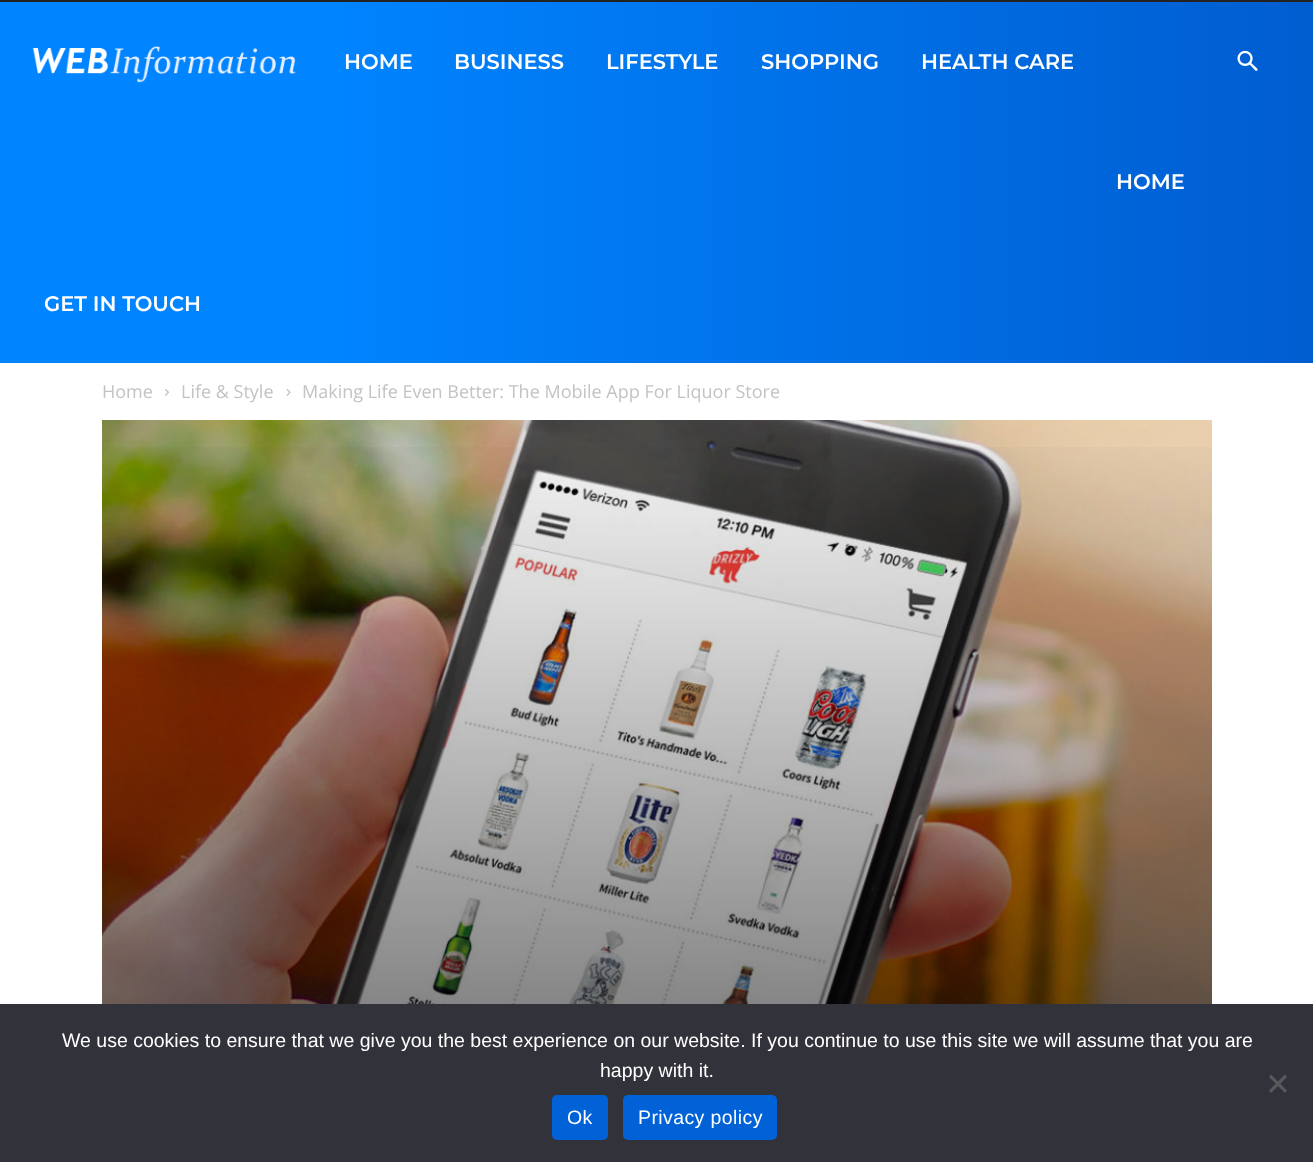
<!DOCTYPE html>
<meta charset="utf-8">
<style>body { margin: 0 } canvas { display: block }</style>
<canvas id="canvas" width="1313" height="1162"></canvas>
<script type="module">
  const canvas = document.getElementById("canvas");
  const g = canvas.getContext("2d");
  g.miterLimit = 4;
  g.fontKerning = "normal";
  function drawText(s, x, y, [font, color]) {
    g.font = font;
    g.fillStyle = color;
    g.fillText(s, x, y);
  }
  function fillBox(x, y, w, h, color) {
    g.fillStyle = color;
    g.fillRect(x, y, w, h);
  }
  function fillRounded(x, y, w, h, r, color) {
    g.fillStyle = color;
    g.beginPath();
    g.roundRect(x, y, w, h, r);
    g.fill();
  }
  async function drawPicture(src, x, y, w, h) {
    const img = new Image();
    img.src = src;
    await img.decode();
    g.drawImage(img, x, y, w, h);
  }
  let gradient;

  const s1 = ["600 21px Montserrat", "#FFFFFF"];
  const s2 = ["18px Open Sans", "#C3C3C3"];
  const s3 = ["19.5px Liberation Sans", "#FFFFFF"];

  fillBox(0, 0, 1313, 1162, "#FFFFFF");
  fillBox(0, 0, 1313, 2, "#222222");
  gradient = g.createLinearGradient(0, 182, 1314, 182);
  gradient.addColorStop(0, "#0084FF");
  gradient.addColorStop(0.25, "#0084FF");
  gradient.addColorStop(1, "#005DD0");
  g.fillStyle = gradient;
  g.fillRect(0, 2, 1313, 361);
  await drawPicture("pic1.png", 32, 46, 264, 37);
  drawText("HOME", 344, 69, s1);
  drawText("BUSINESS", 454, 69, s1);
  drawText("LIFESTYLE", 606, 69, s1);
  drawText("SHOPPING", 761, 69, s1);
  drawText("HEALTH CARE", 921, 69, s1);
  drawText("HOME", 1116, 189, s1);
  drawText("GET IN TOUCH", 44, 311, s1);
  await drawPicture("pic2.png", 1237, 50, 21, 21);
  drawText("Home", 102, 398, s2);
  await drawPicture("pic3.png", 165, 389, 4, 7);
  drawText("Life & Style", 181, 398, s2);
  await drawPicture("pic4.png", 286, 389, 5, 7);
  drawText("Making Life Even Better: The Mobile App For Liquor Store", 302, 398, s2);
  await drawPicture("pic5.png", 102, 420, 1110, 584);
  gradient = g.createLinearGradient(657, 420, 657, 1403);
  gradient.addColorStop(0, "rgba(0, 0, 0, 0)");
  gradient.addColorStop(1, "rgba(0, 0, 0, 0.8)");
  g.fillStyle = gradient;
  g.fillRect(102, 447, 1110, 557);
  fillBox(0, 1004, 1313, 158, "#32323A");
  drawText("We use cookies to ensure that we give you the best experience on our website. If you continue to use this site we will assume that you are", 62, 1047, s3);
  drawText("happy with it.", 600, 1077, s3);
  g.fillStyle = "#59595D";
  g.beginPath();
  g.moveTo(1285, 1074.5);
  g.lineTo(1287, 1077);
  g.lineTo(1271, 1093);
  g.lineTo(1269, 1090.5);
  g.closePath();
  g.fill();
  g.beginPath();
  g.moveTo(1269, 1077);
  g.lineTo(1271, 1074.5);
  g.lineTo(1287, 1090.5);
  g.lineTo(1285, 1093);
  g.closePath();
  g.fill();
  fillRounded(552, 1095, 56, 45, 5, "#0062D6");
  g.letterSpacing = "0.4px";
  drawText("Ok", 567, 1124, s3);
  fillRounded(623, 1095, 154, 45, 5, "#0062D6");
  drawText("Privacy policy", 638, 1124, s3);
</script>
